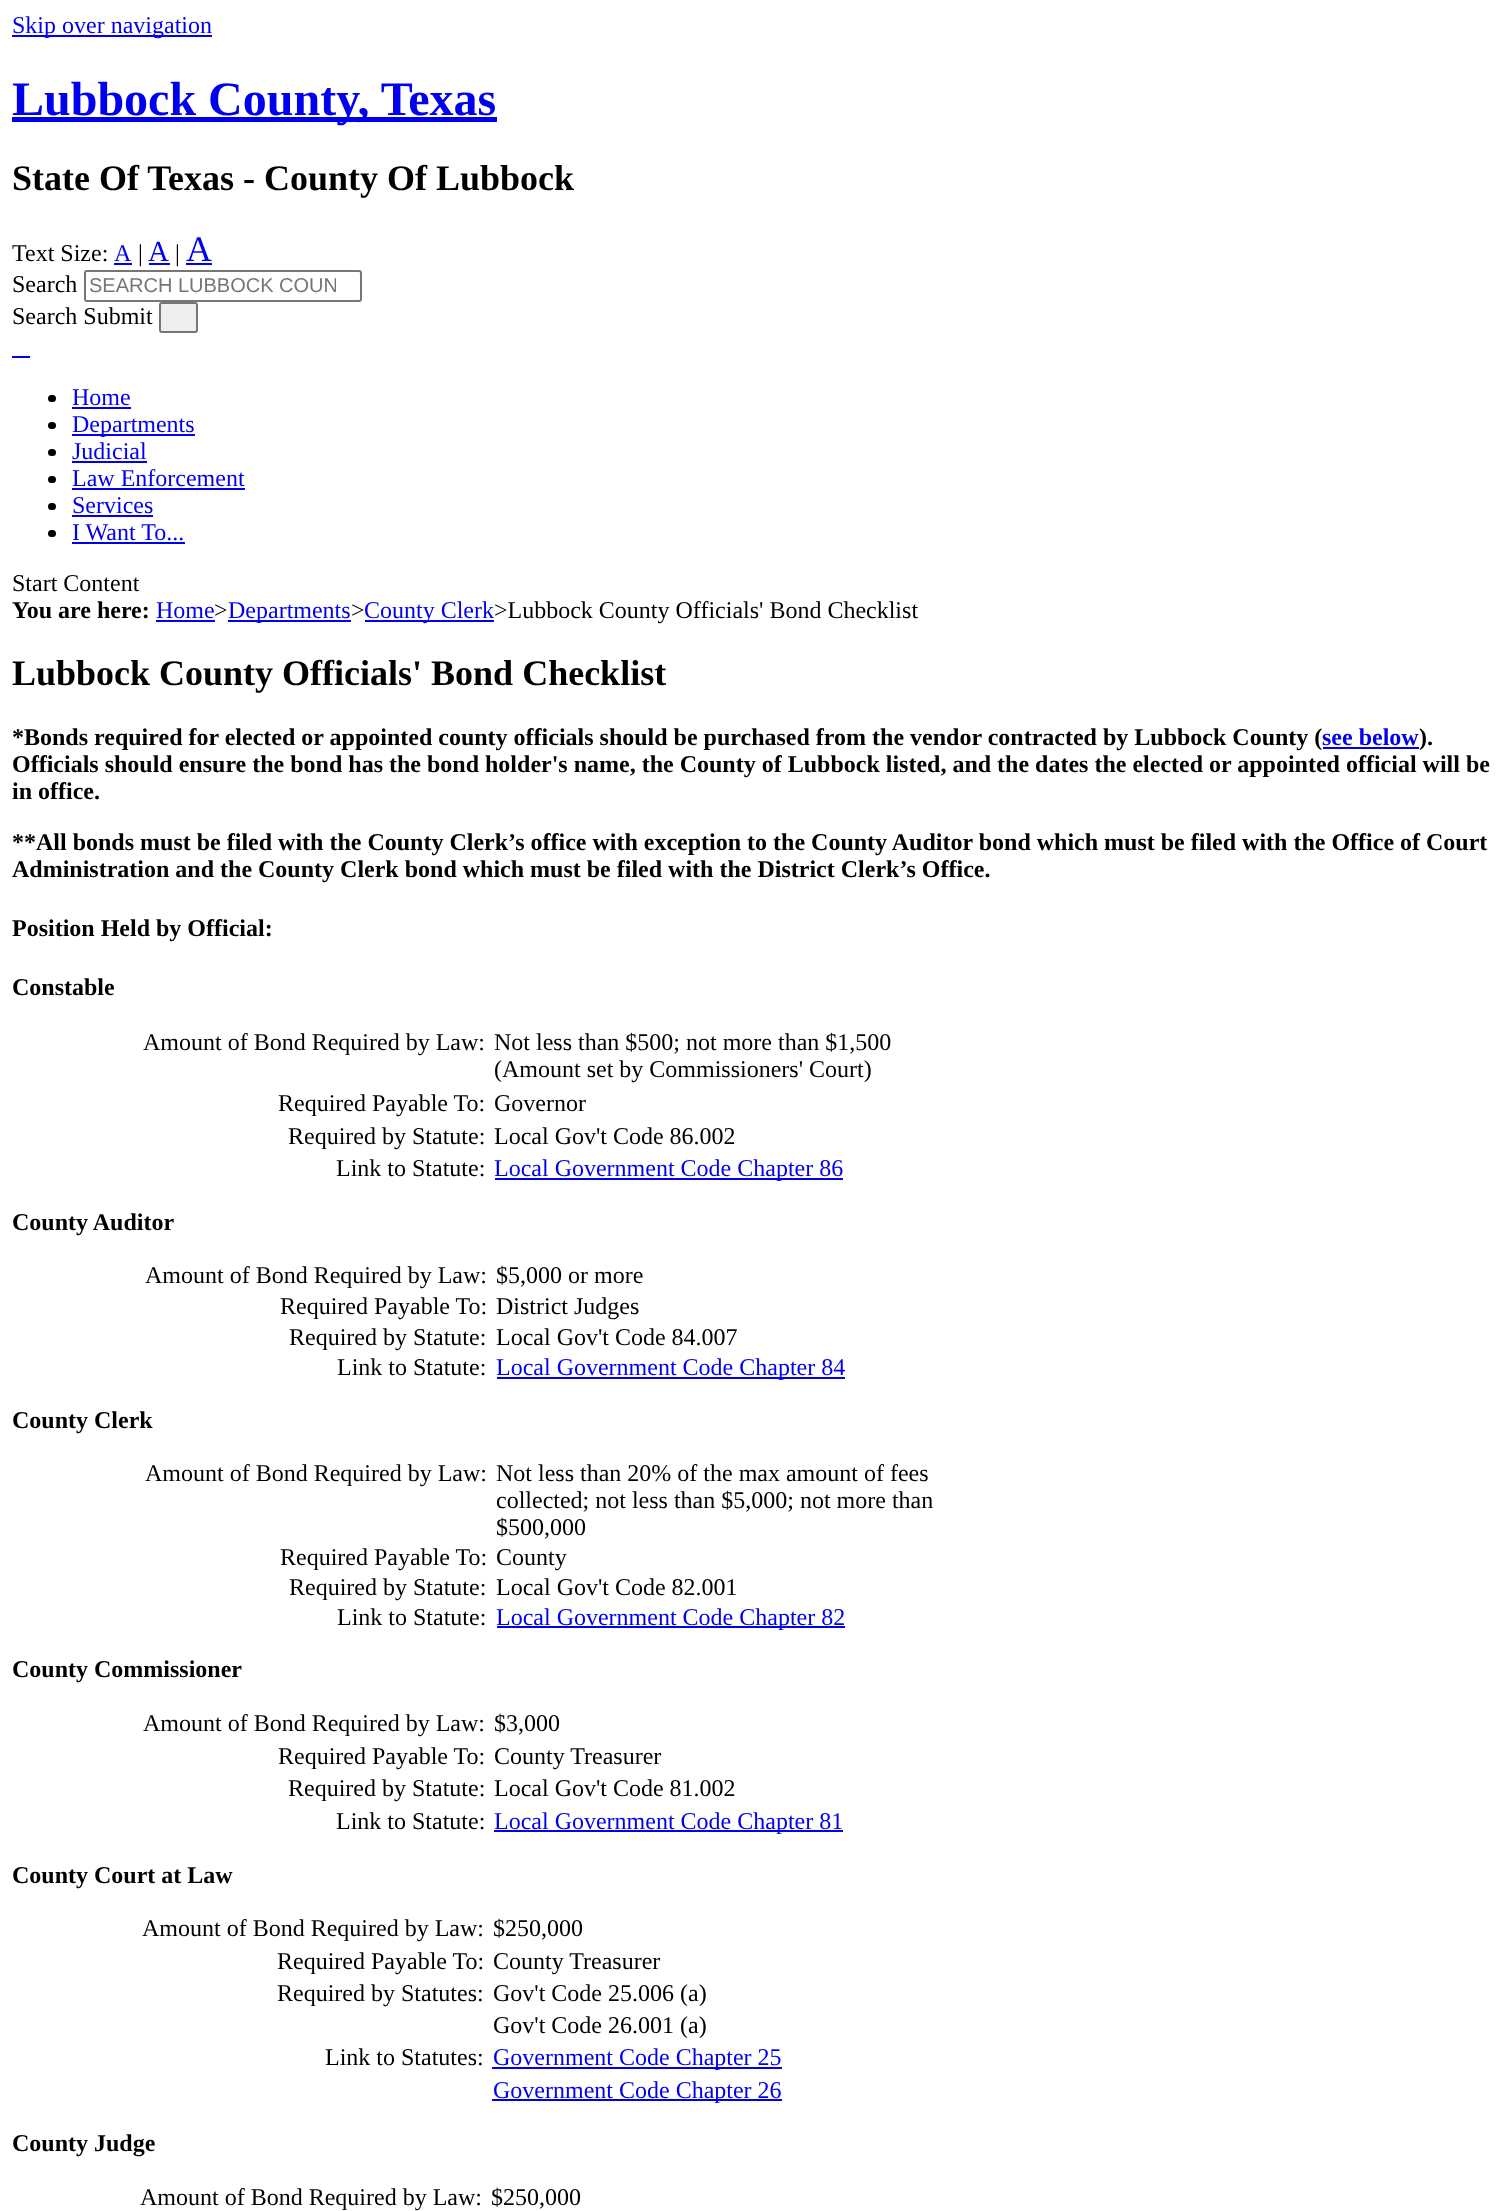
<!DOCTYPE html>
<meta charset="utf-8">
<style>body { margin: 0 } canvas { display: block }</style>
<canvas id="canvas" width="1503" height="2211"></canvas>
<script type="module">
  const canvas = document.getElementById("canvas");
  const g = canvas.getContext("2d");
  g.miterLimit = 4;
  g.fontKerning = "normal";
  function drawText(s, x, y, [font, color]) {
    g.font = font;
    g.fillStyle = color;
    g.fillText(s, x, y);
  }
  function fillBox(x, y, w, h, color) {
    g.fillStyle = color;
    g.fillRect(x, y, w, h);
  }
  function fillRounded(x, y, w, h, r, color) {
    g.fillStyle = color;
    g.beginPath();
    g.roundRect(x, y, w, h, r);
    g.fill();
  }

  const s1 = ["24px Liberation Serif", "#0000EE"];
  const s2 = ["bold 48px Liberation Serif", "#0000EE"];
  const s3 = ["bold 36px Liberation Serif", "#000000"];
  const s4 = ["24px Liberation Serif", "#000000"];
  const s5 = ["29px Liberation Serif", "#0000EE"];
  const s6 = ["36px Liberation Serif", "#0000EE"];
  const s7 = ["20px Liberation Sans", "#757575"];
  const s8 = ["bold 24px Liberation Serif", "#000000"];
  const s9 = ["bold 24px Liberation Serif", "#0000EE"];

  fillBox(0, 0, 1503, 2211, "#FFFFFF");
  fillBox(12, 35, 200, 2, "#0000EE");
  drawText("Skip over navigation", 12, 33, s1);
  fillBox(12, 117, 485, 5, "#0000EE");
  drawText("Lubbock County, Texas", 12, 115, s2);
  drawText("State Of Texas - County Of Lubbock", 12, 190, s3);
  drawText("Text Size:", 12, 261, s4);
  drawText("A", 114, 261, s1);
  fillBox(114, 263, 18, 2, "#0000EE");
  drawText("|", 138, 261, s4);
  drawText("A", 148, 261, s5);
  fillBox(149, 263, 21, 2, "#0000EE");
  drawText("|", 175, 261, s4);
  drawText("A", 186, 261, s6);
  fillBox(186, 263, 26, 2, "#0000EE");
  drawText("Search", 12, 292, s4);
  g.beginPath();
  g.roundRect(85, 271, 276, 30, 2);
  g.strokeStyle = "#767676";
  g.lineWidth = 2;
  g.stroke();
  g.save();
  g.beginPath();
  g.rect(90, 275, 246, 22);
  g.clip();
  drawText("SEARCH LUBBOCK COUN", 89, 292, s7);
  g.restore();
  drawText("Search Submit", 12, 324, s4);
  g.fillStyle = "#EFEFEF";
  g.beginPath();
  g.roundRect(160, 303, 37, 29, 2);
  g.fill();
  g.stroke();
  fillBox(12, 356, 18, 2, "#0000EE");
  fillRounded(48, 395, 8, 7, 3.5, "#000000");
  drawText("Home", 72, 405, s1);
  fillBox(72, 407, 59, 2, "#0000EE");
  fillRounded(48, 422, 8, 7, 3.5, "#000000");
  fillBox(72, 434, 123, 2, "#0000EE");
  drawText("Departments", 72, 432, s1);
  fillRounded(48, 449, 8, 7, 3.5, "#000000");
  drawText("Judicial", 72, 459, s1);
  fillBox(72, 461, 75, 2, "#0000EE");
  fillRounded(48, 476, 8, 7, 3.5, "#000000");
  drawText("Law Enforcement", 72, 486, s1);
  fillBox(72, 488, 173, 2, "#0000EE");
  fillRounded(48, 503, 8, 7, 3.5, "#000000");
  drawText("Services", 72, 513, s1);
  fillBox(72, 515, 81, 2, "#0000EE");
  fillRounded(48, 530, 8, 7, 3.5, "#000000");
  drawText("I Want To...", 72, 540, s1);
  fillBox(72, 542, 113, 2, "#0000EE");
  drawText("Start Content", 12, 591, s4);
  drawText("You are here:", 12, 618, s8);
  drawText("Home", 156, 618, s1);
  fillBox(156, 620, 59, 2, "#0000EE");
  drawText(">", 214, 618, s4);
  fillBox(228, 620, 123, 2, "#0000EE");
  drawText("Departments", 228, 618, s1);
  drawText(">", 351, 618, s4);
  fillBox(365, 620, 129, 2, "#0000EE");
  drawText("County Clerk", 364, 618, s1);
  drawText(">Lubbock County Officials' Bond Checklist", 494, 618, s4);
  drawText("Lubbock County Officials' Bond Checklist", 12, 685, s3);
  drawText("*Bonds required for elected or appointed county officials should be purchased from the vendor contracted by Lubbock County (", 12, 745, s8);
  drawText("see below", 1322, 745, s9);
  drawText(").", 1419, 745, s8);
  fillBox(1323, 747, 96, 2, "#0000EE");
  drawText("Officials should ensure the bond has the bond holder's name, the County of Lubbock listed, and the dates the elected or appointed official will be", 12, 772, s8);
  drawText("in office.", 12, 799, s8);
  drawText("**All bonds must be filed with the County Clerk’s office with exception to the County Auditor bond which must be filed with the Office of Court", 12, 850, s8);
  drawText("Administration and the County Clerk bond which must be filed with the District Clerk’s Office.", 12, 877, s8);
  drawText("Position Held by Official:", 12, 936, s8);
  drawText("Constable", 12, 995, s8);
  drawText("Amount of Bond Required by Law:", 143, 1050, s4);
  drawText("Not less than $500; not more than $1,500", 494, 1050, s4);
  drawText("(Amount set by Commissioners' Court)", 494, 1077, s4);
  drawText("Required Payable To:", 278, 1111, s4);
  drawText("Governor", 494, 1111, s4);
  drawText("Required by Statute:", 288, 1144, s4);
  drawText("Local Gov't Code 86.002", 494, 1144, s4);
  drawText("Link to Statute:", 336, 1176, s4);
  fillBox(495, 1178, 348, 2, "#0000EE");
  drawText("Local Government Code Chapter 86", 494, 1176, s1);
  drawText("County Auditor", 12, 1230, s8);
  drawText("Amount of Bond Required by Law:", 145, 1283, s4);
  drawText("$5,000 or more", 496, 1283, s4);
  drawText("Required Payable To:", 280, 1314, s4);
  drawText("District Judges", 496, 1314, s4);
  drawText("Required by Statute:", 289, 1345, s4);
  drawText("Local Gov't Code 84.007", 496, 1345, s4);
  drawText("Link to Statute:", 337, 1375, s4);
  fillBox(497, 1377, 348, 2, "#0000EE");
  drawText("Local Government Code Chapter 84", 496, 1375, s1);
  drawText("County Clerk", 12, 1428, s8);
  drawText("Amount of Bond Required by Law:", 145, 1481, s4);
  drawText("Not less than 20% of the max amount of fees", 496, 1481, s4);
  drawText("collected; not less than $5,000; not more than", 496, 1508, s4);
  drawText("$500,000", 496, 1535, s4);
  drawText("Required Payable To:", 280, 1565, s4);
  drawText("County", 496, 1565, s4);
  drawText("Required by Statute:", 289, 1595, s4);
  drawText("Local Gov't Code 82.001", 496, 1595, s4);
  drawText("Link to Statute:", 337, 1625, s4);
  fillBox(497, 1626, 348, 2, "#0000EE");
  drawText("Local Government Code Chapter 82", 496, 1625, s1);
  drawText("County Commissioner", 12, 1677, s8);
  drawText("Amount of Bond Required by Law:", 143, 1731, s4);
  drawText("$3,000", 494, 1731, s4);
  drawText("Required Payable To:", 278, 1764, s4);
  drawText("County Treasurer", 494, 1764, s4);
  drawText("Required by Statute:", 288, 1796, s4);
  drawText("Local Gov't Code 81.002", 494, 1796, s4);
  drawText("Link to Statute:", 336, 1829, s4);
  fillBox(494, 1830, 349, 2, "#0000EE");
  drawText("Local Government Code Chapter 81", 494, 1829, s1);
  drawText("County Court at Law", 12, 1883, s8);
  drawText("Amount of Bond Required by Law:", 142, 1936, s4);
  drawText("$250,000", 493, 1936, s4);
  drawText("Required Payable To:", 277, 1969, s4);
  drawText("County Treasurer", 493, 1969, s4);
  drawText("Required by Statutes:", 277, 2001, s4);
  drawText("Gov't Code 25.006 (a)", 493, 2001, s4);
  drawText("Gov't Code 26.001 (a)", 493, 2033, s4);
  drawText("Link to Statutes:", 325, 2065, s4);
  fillBox(492, 2067, 290, 2, "#0000EE");
  drawText("Government Code Chapter 25", 493, 2065, s1);
  fillBox(492, 2099, 290, 2, "#0000EE");
  drawText("Government Code Chapter 26", 493, 2098, s1);
  drawText("County Judge", 12, 2151, s8);
  drawText("Amount of Bond Required by Law:", 140, 2205, s4);
  drawText("$250,000", 491, 2205, s4);
</script>
